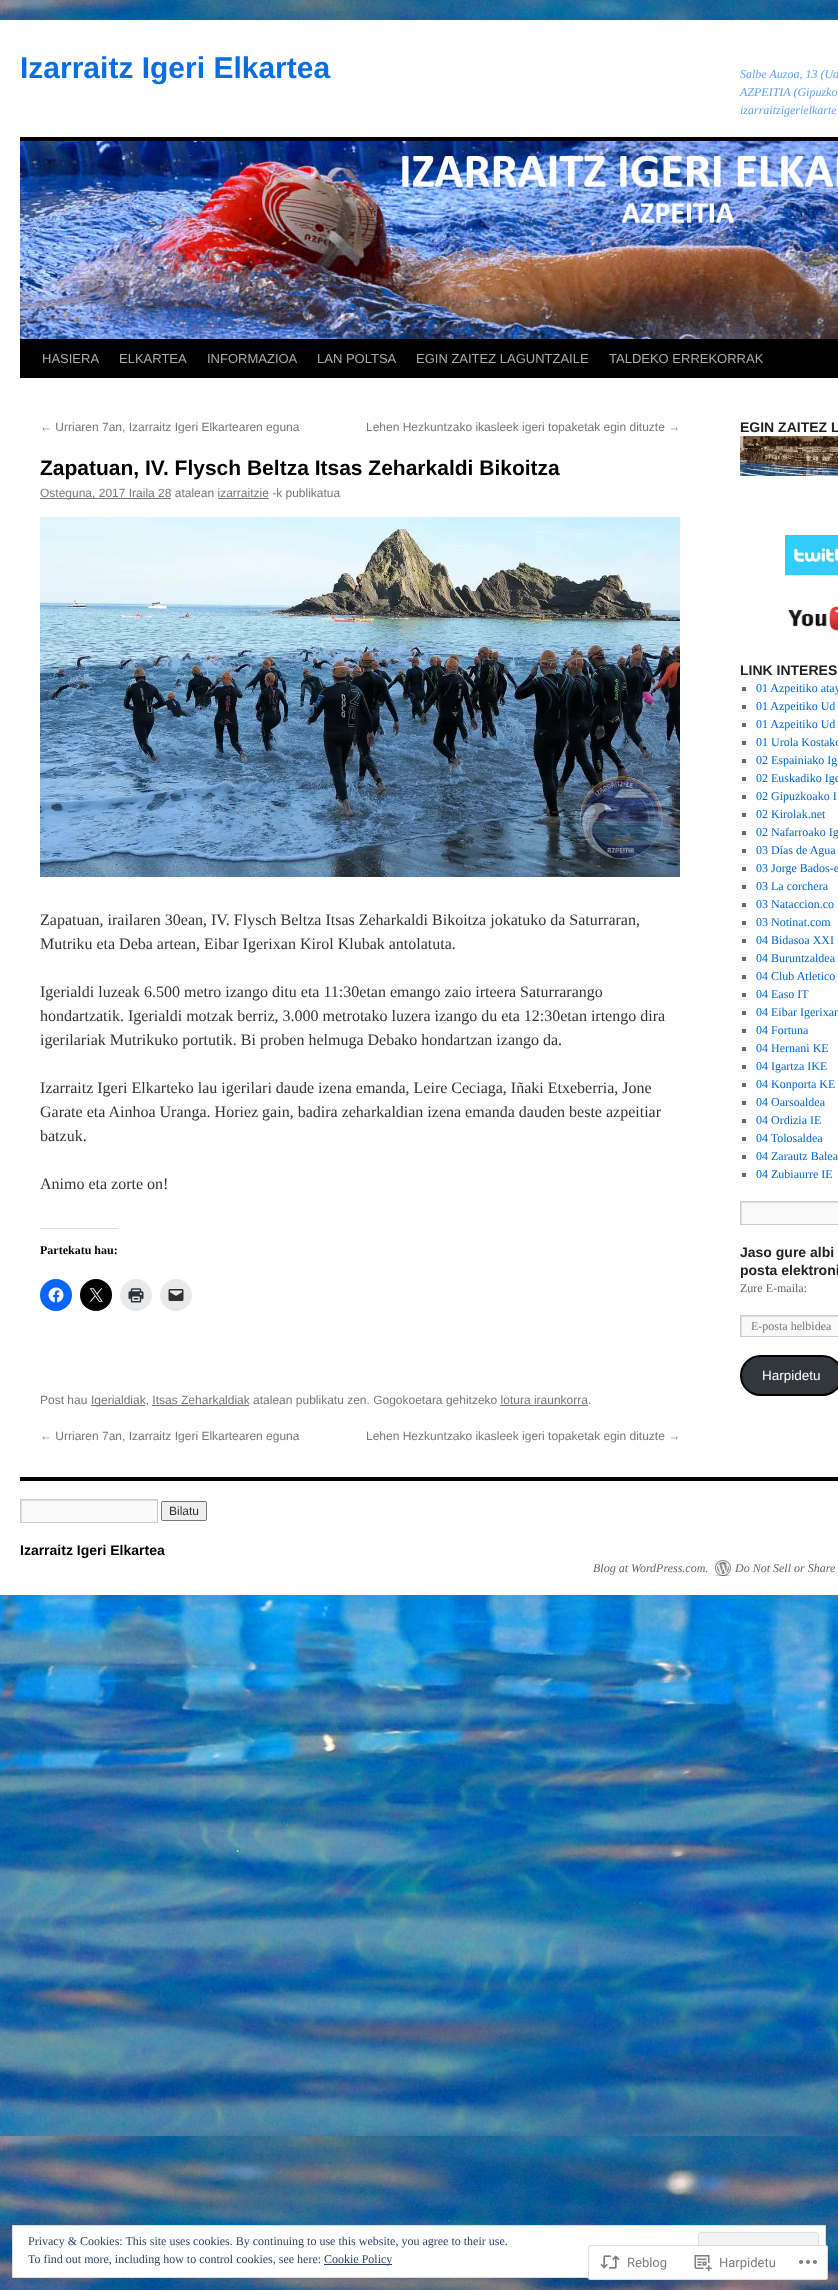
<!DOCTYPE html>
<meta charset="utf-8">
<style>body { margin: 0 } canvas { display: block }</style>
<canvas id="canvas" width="838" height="2290"></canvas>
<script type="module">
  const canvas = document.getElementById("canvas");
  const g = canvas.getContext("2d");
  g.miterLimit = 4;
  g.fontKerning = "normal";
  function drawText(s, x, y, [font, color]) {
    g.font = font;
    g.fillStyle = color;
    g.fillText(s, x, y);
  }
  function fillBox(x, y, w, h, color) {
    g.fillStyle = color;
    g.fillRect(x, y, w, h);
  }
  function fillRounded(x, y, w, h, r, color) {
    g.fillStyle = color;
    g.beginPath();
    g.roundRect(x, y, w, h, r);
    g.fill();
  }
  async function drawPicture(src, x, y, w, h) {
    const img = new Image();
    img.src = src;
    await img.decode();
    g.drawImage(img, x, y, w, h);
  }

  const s1 = ["bold 30px Liberation Sans", "#096EE2"];
  const s2 = ["italic 12px Liberation Serif", "#5FA1EC"];
  const s3 = ["13px Liberation Sans", "#AAAAAA"];
  const s4 = ["12px Liberation Sans", "#777777"];
  const s5 = ["bold 21px Liberation Sans", "#000000"];
  const s6 = ["16px Liberation Serif", "#333333"];
  const s7 = ["bold 12px Liberation Serif", "#000000"];
  const s8 = ["bold 14px Liberation Sans", "#222222"];
  const s9 = ["12px Liberation Serif", "#0066CC"];
  const s10 = ["12px Liberation Serif", "#666666"];
  const s11 = ["12px Liberation Serif", "#777777"];
  const s12 = ["13.5px Liberation Sans", "#FFFFFF"];
  const s13 = ["12px Liberation Sans", "#333333"];
  const s14 = ["bold 14px Liberation Sans", "#000000"];
  const s15 = ["italic 12px Liberation Serif", "#666666"];
  const s16 = ["12px Liberation Serif", "#2E4467"];
  const s17 = ["13px Roboto", "#7B7F85"];

  fillBox(0, 0, 838, 2290, "#FFFFFF");
  await drawPicture("pic1.png", 0, 0, 838, 2290);
  fillBox(0, 20, 838, 1575, "#FFFFFF");
  drawText("Izarraitz Igeri Elkartea", 20, 78, s1);
  drawText("Salbe Auzoa, 13 (Ud", 740, 78, s2);
  drawText("AZPEITIA (Gipuzko", 740, 96, s2);
  drawText("izarraitzigerielkarte", 740, 114, s2);
  fillBox(20, 137, 818, 4, "#000000");
  fillBox(20, 339, 818, 39, "#000000");
  await drawPicture("pic2.png", 20, 141, 818, 198);
  drawText("HASIERA", 42, 363, s3);
  drawText("ELKARTEA", 119, 363, s3);
  drawText("INFORMAZIOA", 207, 363, s3);
  drawText("LAN POLTSA", 317, 363, s3);
  drawText("EGIN ZAITEZ LAGUNTZAILE", 416, 363, s3);
  drawText("TALDEKO ERREKORRAK", 609, 363, s3);
  drawText("← Urriaren 7an, Izarraitz Igeri Elkartearen eguna", 40, 431, s4);
  drawText("Lehen Hezkuntzako ikasleek igeri topaketak egin dituzte →", 366, 431, s4);
  drawText("Zapatuan, IV. Flysch Beltza Itsas Zeharkaldi Bikoitza", 40, 475, s5);
  fillBox(40, 498, 131, 1, "#777777");
  drawText("Osteguna, 2017 Iraila 28 atalean izarraitzie -k publikatua", 40, 497, s4);
  fillBox(218, 498, 51, 1, "#777777");
  await drawPicture("pic3.png", 40, 517, 640, 360);
  drawText("Zapatuan, irailaren 30ean, IV. Flysch Beltza Itsas Zeharkaldi Bikoitza jokatuko da Saturraran,", 40, 925, s6);
  drawText("Mutriku eta Deba artean, Eibar Igerixan Kirol Klubak antolatuta.", 40, 949, s6);
  drawText("Igerialdi luzeak 6.500 metro izango ditu eta 11:30etan emango zaio irteera Saturrarango", 40, 997, s6);
  drawText("hondartzatik. Igerialdi motzak berriz, 3.000 metrotako luzera izango du eta 12:30etan irtengo dira", 40, 1021, s6);
  drawText("igerilariak Mutrikuko portutik. Bi proben helmuga Debako hondartzan izango da.", 40, 1045, s6);
  drawText("Izarraitz Igeri Elkarteko lau igerilari daude izena emanda, Leire Ceciaga, Iñaki Etxeberria, Jone", 40, 1093, s6);
  drawText("Garate eta Ainhoa Uranga. Horiez gain, badira zeharkaldian izena emanda dauden beste azpeitiar", 40, 1117, s6);
  drawText("batzuk.", 40, 1141, s6);
  drawText("Animo eta zorte on!", 40, 1189, s6);
  fillBox(40, 1228, 78, 1, "#DCDCDE");
  drawText("Partekatu hau:", 40, 1254, s7);
  g.fillStyle = "#0866FF";
  g.beginPath();
  g.arc(56, 1295, 16, 0, Math.PI * 2);
  g.fill();
  await drawPicture("pic4.png", 48, 1287, 16, 16);
  g.fillStyle = "#000000";
  g.beginPath();
  g.arc(96, 1295, 16, 0, Math.PI * 2);
  g.fill();
  await drawPicture("pic5.png", 89, 1288, 14, 14);
  g.fillStyle = "#E9E9E9";
  g.beginPath();
  g.arc(136, 1295, 16, 0, Math.PI * 2);
  g.fill();
  await drawPicture("pic6.png", 128, 1288, 16, 15);
  g.beginPath();
  g.arc(176, 1295, 16, 0, Math.PI * 2);
  g.fill();
  await drawPicture("pic7.png", 168, 1289, 16, 12);
  drawText("Post hau", 40, 1404, s4);
  fillBox(91, 1405, 54, 1, "#777777");
  drawText("Igerialdiak, Itsas Zeharkaldiak atalean publikatu zen. Gogokoetara gehitzeko lotura iraunkorra.", 91, 1404, s4);
  fillBox(152, 1405, 97, 1, "#777777");
  fillBox(500, 1405, 88, 1, "#777777");
  drawText("← Urriaren 7an, Izarraitz Igeri Elkartearen eguna", 40, 1440, s4);
  drawText("Lehen Hezkuntzako ikasleek igeri topaketak egin dituzte →", 366, 1440, s4);
  drawText("EGIN ZAITEZ L", 740, 432, s8);
  await drawPicture("pic8.png", 740, 436, 98, 40);
  await drawPicture("pic9.png", 785, 535, 53, 40);
  await drawPicture("pic10.png", 788, 606, 50, 26);
  drawText("LINK INTERES", 740, 675, s8);
  fillBox(742, 687, 4, 4, "#666666");
  drawText("01 Azpeitiko atay", 756, 692, s9);
  fillBox(742, 705, 4, 4, "#666666");
  drawText("01 Azpeitiko Ud", 756, 710, s9);
  fillBox(742, 723, 4, 4, "#666666");
  drawText("01 Azpeitiko Ud", 756, 728, s9);
  fillBox(742, 741, 4, 4, "#666666");
  drawText("01 Urola Kostako", 756, 746, s9);
  fillBox(742, 759, 4, 4, "#666666");
  drawText("02 Espainiako Ig", 756, 764, s9);
  fillBox(742, 777, 4, 4, "#666666");
  drawText("02 Euskadiko Ige", 756, 782, s9);
  fillBox(742, 795, 4, 4, "#666666");
  drawText("02 Gipuzkoako I", 756, 800, s9);
  fillBox(742, 813, 4, 4, "#666666");
  drawText("02 Kirolak.net", 756, 818, s9);
  fillBox(742, 831, 4, 4, "#666666");
  drawText("02 Nafarroako Ig", 756, 836, s9);
  fillBox(742, 849, 4, 4, "#666666");
  drawText("03 Días de Agua", 756, 854, s9);
  fillBox(742, 867, 4, 4, "#666666");
  drawText("03 Jorge Bados-e", 756, 872, s9);
  fillBox(742, 885, 4, 4, "#666666");
  drawText("03 La corchera", 756, 890, s9);
  fillBox(742, 903, 4, 4, "#666666");
  drawText("03 Nataccion.co", 756, 908, s9);
  fillBox(742, 921, 4, 4, "#666666");
  drawText("03 Notinat.com", 756, 926, s9);
  fillBox(742, 939, 4, 4, "#666666");
  drawText("04 Bidasoa XXI", 756, 944, s9);
  fillBox(742, 957, 4, 4, "#666666");
  drawText("04 Buruntzaldea", 756, 962, s9);
  fillBox(742, 975, 4, 4, "#666666");
  drawText("04 Club Atletico", 756, 980, s9);
  fillBox(742, 993, 4, 4, "#666666");
  drawText("04 Easo IT", 756, 998, s9);
  fillBox(742, 1011, 4, 4, "#666666");
  drawText("04 Eibar Igerixan", 756, 1016, s9);
  fillBox(742, 1029, 4, 4, "#666666");
  drawText("04 Fortuna", 756, 1034, s9);
  fillBox(742, 1047, 4, 4, "#666666");
  drawText("04 Hernani KE", 756, 1052, s9);
  fillBox(742, 1065, 4, 4, "#666666");
  drawText("04 Igartza IKE", 756, 1070, s9);
  fillBox(742, 1083, 4, 4, "#666666");
  drawText("04 Konporta KE", 756, 1088, s9);
  fillBox(742, 1101, 4, 4, "#666666");
  drawText("04 Oarsoaldea", 756, 1106, s9);
  fillBox(742, 1119, 4, 4, "#666666");
  drawText("04 Ordizia IE", 756, 1124, s9);
  fillBox(742, 1137, 4, 4, "#666666");
  drawText("04 Tolosaldea", 756, 1142, s9);
  fillBox(742, 1155, 4, 4, "#666666");
  drawText("04 Zarautz Balea", 756, 1160, s9);
  fillBox(742, 1173, 4, 4, "#666666");
  drawText("04 Zubiaurre IE", 756, 1178, s9);
  fillBox(742, 1203, 96, 21, "#F9F9F9");
  g.save();
  g.beginPath();
  g.rect(741, 1202, 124, 22);
  g.clip();
  g.fillStyle = "#E0E0E0";
  g.beginPath();
  g.moveTo(642, 1103);
  g.lineTo(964, 1103);
  g.lineTo(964, 1323);
  g.lineTo(642, 1323);
  g.closePath();
  g.moveTo(742, 1203);
  g.lineTo(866, 1203);
  g.lineTo(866, 1225);
  g.lineTo(742, 1225);
  g.closePath();
  g.fill("evenodd");
  g.restore();
  g.strokeStyle = "#CCCCCC";
  g.strokeRect(740.5, 1201.5, 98, 23);
  drawText("Jaso gure albi", 740, 1257, s8);
  drawText("posta elektroni", 740, 1275, s8);
  drawText("Zure E-maila:", 740, 1292, s10);
  fillBox(742, 1317, 96, 19, "#F9F9F9");
  g.save();
  g.beginPath();
  g.rect(741, 1316, 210, 20);
  g.clip();
  g.fillStyle = "#E0E0E0";
  g.beginPath();
  g.moveTo(642, 1217);
  g.lineTo(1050, 1217);
  g.lineTo(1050, 1435);
  g.lineTo(642, 1435);
  g.closePath();
  g.moveTo(742, 1317);
  g.lineTo(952, 1317);
  g.lineTo(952, 1337);
  g.lineTo(742, 1337);
  g.closePath();
  g.fill("evenodd");
  g.restore();
  g.strokeRect(740.5, 1315.5, 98, 21);
  drawText("E-posta helbidea", 751, 1330, s11);
  g.fillStyle = "#32373C";
  g.beginPath();
  g.roundRect(741, 1356, 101, 39, 19.5);
  g.fill();
  g.strokeStyle = "#000000";
  g.lineWidth = 2;
  g.stroke();
  drawText("Harpidetu", 762, 1380, s12);
  fillBox(20, 1477, 818, 4, "#000000");
  fillBox(22, 1501, 135, 21, "#F9F9F9");
  g.save();
  g.beginPath();
  g.rect(21, 1500, 136, 22);
  g.clip();
  g.fillStyle = "#E0E0E0";
  g.beginPath();
  g.moveTo(-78, 1401);
  g.lineTo(256, 1401);
  g.lineTo(256, 1621);
  g.lineTo(-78, 1621);
  g.closePath();
  g.moveTo(22, 1501);
  g.lineTo(158, 1501);
  g.lineTo(158, 1523);
  g.lineTo(22, 1523);
  g.closePath();
  g.fill("evenodd");
  g.restore();
  g.strokeStyle = "#CCCCCC";
  g.lineWidth = 1;
  g.strokeRect(20.5, 1499.5, 137, 23);
  g.fillStyle = "#EFEFEF";
  g.beginPath();
  g.roundRect(161.5, 1501.5, 45, 19, 1.5);
  g.fill();
  g.strokeStyle = "#767676";
  g.stroke();
  drawText("Bilatu", 169, 1515, s13);
  drawText("Izarraitz Igeri Elkartea", 20, 1555, s14);
  drawText("Blog at WordPress.com.", 593, 1572, s15);
  await drawPicture("pic11.png", 715, 1560, 16, 16);
  drawText("Do Not Sell or Share", 735, 1572, s15);
  g.fillStyle = "#FFFFFF";
  g.beginPath();
  g.rect(12.5, 2225.5, 813, 52);
  g.fill();
  g.strokeStyle = "#DEDEDE";
  g.stroke();
  drawText("Privacy & Cookies: This site uses cookies. By continuing to use this website, you agree to their use.", 28, 2245, s16);
  g.fillStyle = "#F3F3F3";
  g.beginPath();
  g.roundRect(698.5, 2232.5, 120, 38, 2.5);
  g.fill();
  g.stroke();
  drawText("To find out more, including how to control cookies, see here:", 28, 2263, s16);
  fillBox(324, 2264, 68, 1, "#2E4467");
  drawText("Cookie Policy", 324, 2263, s16);
  fillRounded(588, 2245, 240, 35, 3, "rgba(255, 255, 255, 0.98)");
  g.beginPath();
  g.roundRect(588.5, 2245.5, 239, 34, 2.5);
  g.strokeStyle = "rgba(220, 220, 222, 0.98)";
  g.stroke();
  await drawPicture("pic12.png", 600, 2255, 20, 14);
  drawText("Reblog", 627, 2267, s17);
  await drawPicture("pic13.png", 694, 2255, 18, 17);
  drawText("Harpidetu", 719, 2267, s17);
  await drawPicture("pic14.png", 799, 2260, 18, 4);
</script>
